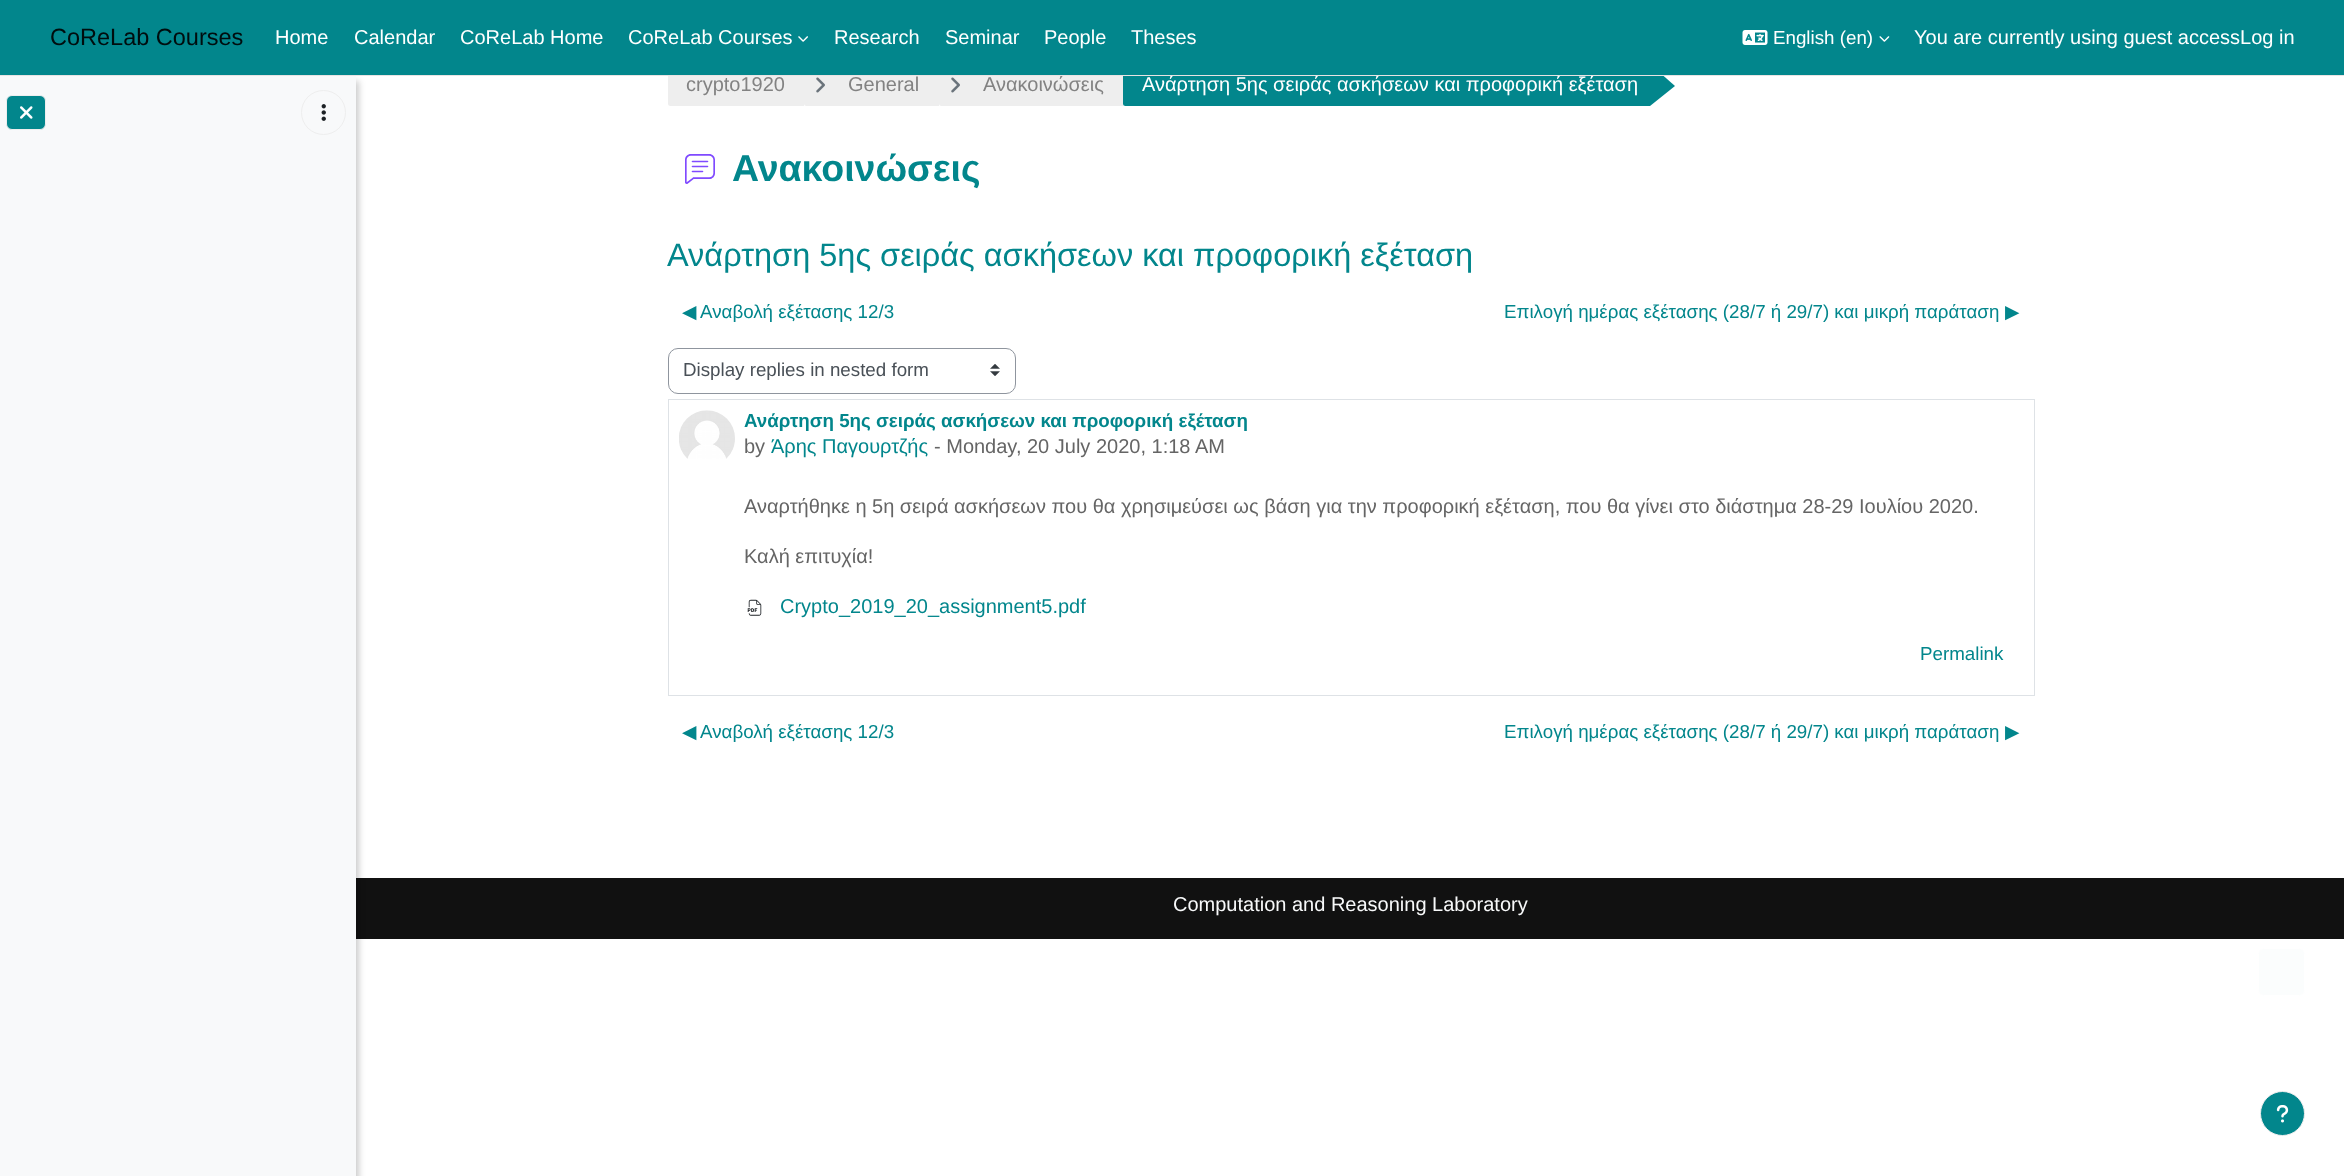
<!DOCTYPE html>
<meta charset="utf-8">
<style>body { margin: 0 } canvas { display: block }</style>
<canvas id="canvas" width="2344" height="1176"></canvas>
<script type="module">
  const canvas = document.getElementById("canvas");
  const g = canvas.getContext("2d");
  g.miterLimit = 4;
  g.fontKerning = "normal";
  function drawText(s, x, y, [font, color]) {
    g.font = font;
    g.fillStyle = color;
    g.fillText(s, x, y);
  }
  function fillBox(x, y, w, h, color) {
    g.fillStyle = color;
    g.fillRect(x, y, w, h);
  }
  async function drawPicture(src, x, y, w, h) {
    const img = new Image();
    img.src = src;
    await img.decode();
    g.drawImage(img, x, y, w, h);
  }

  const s1 = ["20px Liberation Sans", "#828282"];
  const s2 = ["20px Liberation Sans", "#FFFFFF"];
  const s3 = ["23.5px Liberation Sans", "#000D0E"];
  const s4 = ["18.75px Liberation Sans", "#FFFFFF"];
  const s5 = ["bold 37.5px Liberation Sans", "#02868C"];
  const s6 = ["32.5px Liberation Sans", "#02868C"];
  const s7 = ["18.75px DejaVu Sans", "#02868C"];
  const s8 = ["18.75px Liberation Sans", "#02868C"];
  const s9 = ["18.75px Liberation Sans", "#495057"];
  const s10 = ["bold 18.75px Liberation Sans", "#02868C"];
  const s11 = ["20px Liberation Sans", "#656565"];
  const s12 = ["20px Liberation Sans", "#02868C"];
  const s13 = ["20px Liberation Sans", "#F8F9FA"];

  fillBox(0, 0, 2344, 1176, "#FFFFFF");
  fillBox(356, 878, 1988, 61, "#111111");
  g.fillStyle = "rgba(0, 0, 0, 0.2)";
  g.filter = "blur(3px)";
  g.beginPath();
  g.rect(3, 81, 356, 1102);
  g.fill();
  g.filter = "none";
  g.fillStyle = "#EEEEEE";
  g.beginPath();
  g.roundRect(668, 64, 136, 42, [2.5, 0, 0, 2.5]);
  g.fill();
  g.beginPath();
  g.roundRect(804, 64, 135, 42, [2.5, 0, 0, 2.5]);
  g.fill();
  g.beginPath();
  g.roundRect(939, 64, 184, 42, [2.5, 0, 0, 2.5]);
  g.fill();
  g.fillStyle = "#02868C";
  g.beginPath();
  g.roundRect(1123, 64, 527, 42, [2.5, 0, 0, 2.5]);
  g.fill();
  g.beginPath();
  g.moveTo(1650, 106);
  g.lineTo(1650, 64);
  g.lineTo(1675, 86);
  g.closePath();
  g.fill();
  fillBox(0, 0, 2344, 75, "#02868C");
  drawText("Ανακοινώσεις", 983, 91, s1);
  drawText("Ανάρτηση 5ης σειράς ασκήσεων και προφορική εξέταση", 1142, 91, s2);
  fillBox(0, 75, 2344, 1, "#E8E3E3");
  drawText("CoReLab Courses", 50, 45, s3);
  drawText("Home", 275, 44, s2);
  drawText("Calendar", 354, 44, s2);
  drawText("CoReLab Home", 460, 44, s2);
  drawText("CoReLab Courses", 628, 44, s2);
  await drawPicture("pic1.png", 798, 36, 10, 6);
  drawText("Research", 834, 44, s2);
  drawText("Seminar", 945, 44, s2);
  drawText("People", 1044, 44, s2);
  drawText("Theses", 1131, 44, s2);
  await drawPicture("pic2.png", 1742, 30, 26, 15);
  drawText("English (en)", 1773, 44, s4);
  await drawPicture("pic3.png", 1879, 36, 11, 6);
  drawText("You are currently using guest accessLog in", 1914, 44, s2);
  fillBox(0, 76, 356, 1100, "#F8F9FA");
  g.fillStyle = "#02868C";
  g.beginPath();
  g.roundRect(6.5, 95.5, 39, 34, 5.5);
  g.fill();
  g.strokeStyle = "#EEEEEE";
  g.stroke();
  await drawPicture("pic4.png", 20, 106, 13, 13);
  g.beginPath();
  g.arc(323.5, 112.5, 22, 0, Math.PI * 2);
  g.stroke();
  await drawPicture("pic5.png", 321, 104, 5, 17);
  drawText("crypto1920", 686, 91, s1);
  await drawPicture("pic6.png", 816, 77, 9, 16);
  drawText("General", 848, 91, s1);
  await drawPicture("pic6.png", 951, 77, 9, 16);
  await drawPicture("pic7.png", 685, 154, 30, 30);
  drawText("Ανακοινώσεις", 732, 181, s5);
  drawText("Ανάρτηση 5ης σειράς ασκήσεων και προφορική εξέταση", 667, 266, s6);
  drawText("◀︎", 682, 318, s7);
  drawText("Αναβολή εξέτασης 12/3", 700, 318, s8);
  drawText("Επιλογή ημέρας εξέτασης (28/7 ή 29/7) και μικρή παράταση", 1504, 318, s8);
  drawText("▶︎", 2005, 318, s7);
  await drawPicture("pic8.png", 990, 364, 10, 12);
  g.beginPath();
  g.roundRect(668.5, 348.5, 347, 45, 9.5);
  g.strokeStyle = "#8F959E";
  g.stroke();
  drawText("Display replies in nested form", 683, 376, s9);
  g.strokeStyle = "#DEE2E6";
  g.strokeRect(668.5, 399.5, 1366, 296);
  await drawPicture("pic9.png", 679, 410, 56, 49);
  drawText("Ανάρτηση 5ης σειράς ασκήσεων και προφορική εξέταση", 744, 427, s10);
  drawText("by", 744, 453, s11);
  drawText("Άρης Παγουρτζής", 771, 453, s12);
  drawText("- Monday, 20 July 2020, 1:18 AM", 934, 453, s11);
  drawText("Αναρτήθηκε η 5η σειρά ασκήσεων που θα χρησιμεύσει ως βάση για την προφορική εξέταση, που θα γίνει στο διάστημα 28-29 Ιουλίου 2020.", 744, 513, s11);
  drawText("Καλή επιτυχία!", 744, 563, s11);
  await drawPicture("pic10.png", 747, 599, 15, 17);
  drawText("Crypto_2019_20_assignment5.pdf", 780, 613, s12);
  drawText("Permalink", 1920, 660, s8);
  drawText("◀︎", 682, 738, s7);
  drawText("Αναβολή εξέτασης 12/3", 700, 738, s8);
  drawText("Επιλογή ημέρας εξέτασης (28/7 ή 29/7) και μικρή παράταση", 1504, 738, s8);
  drawText("▶︎", 2005, 738, s7);
  drawText("Computation and Reasoning Laboratory", 1173, 911, s13);
  g.fillStyle = "#02868C";
  g.beginPath();
  g.arc(2282.5, 1113.5, 22, 0, Math.PI * 2);
  g.fill();
  g.strokeStyle = "#EEEEEE";
  g.stroke();
  await drawPicture("pic11.png", 2276, 1105, 13, 18);
  g.fillStyle = "#FBFDFD";
  g.beginPath();
  g.roundRect(2258.5, 948.5, 46, 47, 5.5);
  g.fill();
  g.strokeStyle = "#FFFFFF";
  g.stroke();
</script>
